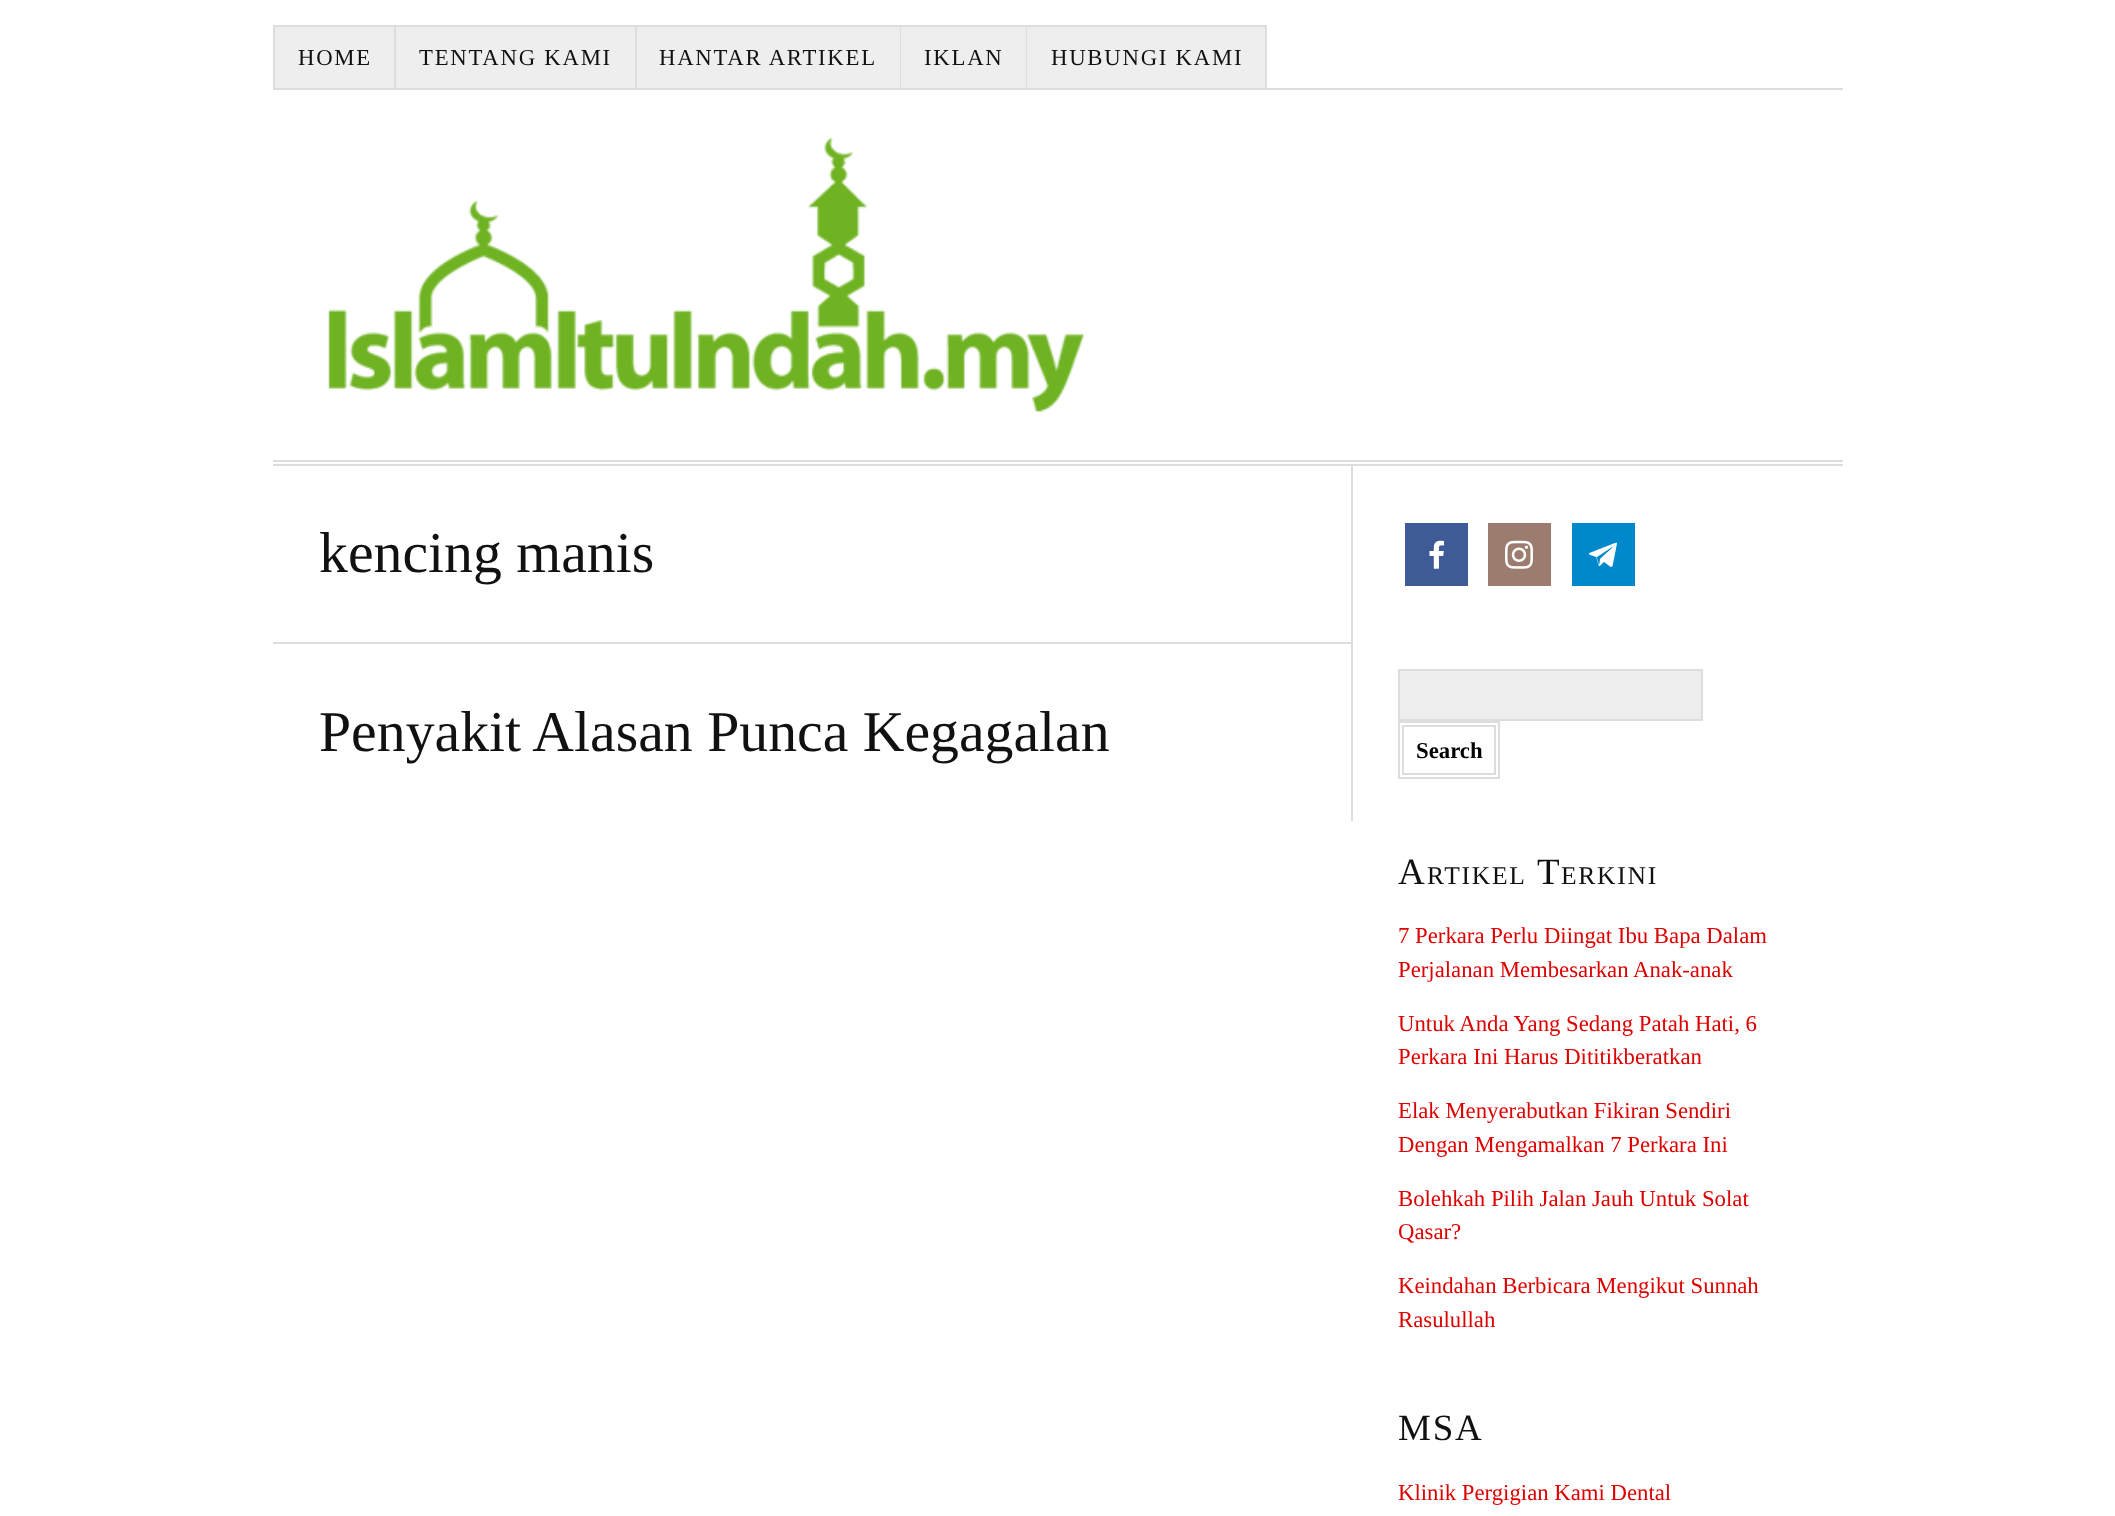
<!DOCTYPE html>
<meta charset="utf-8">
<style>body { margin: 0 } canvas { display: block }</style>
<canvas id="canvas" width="2115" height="1516"></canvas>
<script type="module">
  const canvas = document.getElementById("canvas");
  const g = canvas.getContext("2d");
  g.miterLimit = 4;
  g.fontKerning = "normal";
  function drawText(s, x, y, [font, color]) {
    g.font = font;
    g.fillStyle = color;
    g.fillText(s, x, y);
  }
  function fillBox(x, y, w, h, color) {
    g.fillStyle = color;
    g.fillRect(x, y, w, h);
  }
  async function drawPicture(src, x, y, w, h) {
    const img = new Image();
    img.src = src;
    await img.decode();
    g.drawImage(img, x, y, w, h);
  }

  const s1 = ["22.75px Liberation Serif", "#111111"];
  const s2 = ["57.75px Liberation Serif", "#111111"];
  const s3 = ["bold 22.75px Liberation Serif", "#000000"];
  const s4 = ["37px Liberation Serif", "#111111"];
  const s5 = ["25.5px Liberation Serif", "#111111"];
  const s6 = ["22.75px Liberation Serif", "#DD0000"];

  fillBox(0, 0, 2115, 1516, "#FFFFFF");
  fillBox(273, 88, 1570, 2, "#DDDDDD");
  fillBox(273, 25, 2, 64, "#DDDDDD");
  fillBox(275, 27, 119, 61, "#EEEEEE");
  fillBox(275, 25, 626, 2, "#DDDDDD");
  fillBox(394, 25, 2, 64, "#DDDDDD");
  g.letterSpacing = "1.75px";
  drawText("HOME", 298, 65, s1);
  fillBox(396, 27, 239, 61, "#EEEEEE");
  fillBox(635, 25, 2, 64, "#DDDDDD");
  drawText("TENTANG KAMI", 419, 65, s1);
  fillBox(637, 27, 263, 61, "#EEEEEE");
  fillBox(900, 25, 2, 64, "#DDDDDD");
  drawText("HANTAR ARTIKEL", 659, 65, s1);
  fillBox(901, 27, 125, 61, "#EEEEEE");
  fillBox(901, 25, 126, 2, "#DDDDDD");
  fillBox(1026, 25, 2, 64, "#DDDDDD");
  drawText("IKLAN", 924, 65, s1);
  fillBox(1027, 27, 238, 61, "#EEEEEE");
  fillBox(1027, 25, 240, 2, "#DDDDDD");
  fillBox(1265, 25, 2, 64, "#DDDDDD");
  drawText("HUBUNGI KAMI", 1051, 65, s1);
  fillBox(273, 460, 1570, 2, "#DDDDDD");
  fillBox(273, 464, 1570, 2, "#DDDDDD");
  await drawPicture("pic1.png", 328, 137, 756, 275);
  fillBox(1351, 466, 2, 355, "#DDDDDD");
  fillBox(273, 642, 1078, 2, "#DDDDDD");
  g.letterSpacing = "0px";
  drawText("kencing manis", 319, 572, s2);
  drawText("Penyakit Alasan Punca Kegagalan", 319, 751, s2);
  fillBox(1405, 523, 63, 63, "#3E5B98");
  await drawPicture("pic2.png", 1429, 540, 16, 29);
  fillBox(1488, 523, 63, 63, "#9C7C6E");
  await drawPicture("pic3.png", 1505, 540, 28, 29);
  fillBox(1572, 523, 63, 63, "#0088CC");
  await drawPicture("pic4.png", 1589, 542, 28, 25);
  g.fillStyle = "#EEEEEE";
  g.beginPath();
  g.rect(1399, 670, 303, 50);
  g.fill();
  g.strokeStyle = "#DDDDDD";
  g.lineWidth = 2;
  g.stroke();
  g.strokeRect(1399, 722, 100, 56);
  g.strokeRect(1403, 726, 92, 48);
  drawText("Search", 1416, 758, s3);
  g.letterSpacing = "1.75px";
  drawText("A", 1398, 884, s4);
  drawText("RTIKEL", 1427, 884, s5);
  drawText("T", 1537, 884, s4);
  drawText("ERKINI", 1561, 884, s5);
  g.letterSpacing = "0px";
  drawText("7 Perkara Perlu Diingat Ibu Bapa Dalam", 1398, 943, s6);
  drawText("Perjalanan Membesarkan Anak-anak", 1398, 977, s6);
  drawText("Untuk Anda Yang Sedang Patah Hati, 6", 1398, 1031, s6);
  drawText("Perkara Ini Harus Dititikberatkan", 1398, 1064, s6);
  drawText("Elak Menyerabutkan Fikiran Sendiri", 1398, 1118, s6);
  drawText("Dengan Mengamalkan 7 Perkara Ini", 1398, 1152, s6);
  drawText("Bolehkah Pilih Jalan Jauh Untuk Solat", 1398, 1206, s6);
  drawText("Qasar?", 1398, 1239, s6);
  drawText("Keindahan Berbicara Mengikut Sunnah", 1398, 1293, s6);
  drawText("Rasulullah", 1398, 1327, s6);
  g.letterSpacing = "1.75px";
  drawText("MSA", 1398, 1440, s4);
  g.letterSpacing = "0px";
  drawText("Klinik Pergigian Kami Dental", 1398, 1500, s6);
</script>
